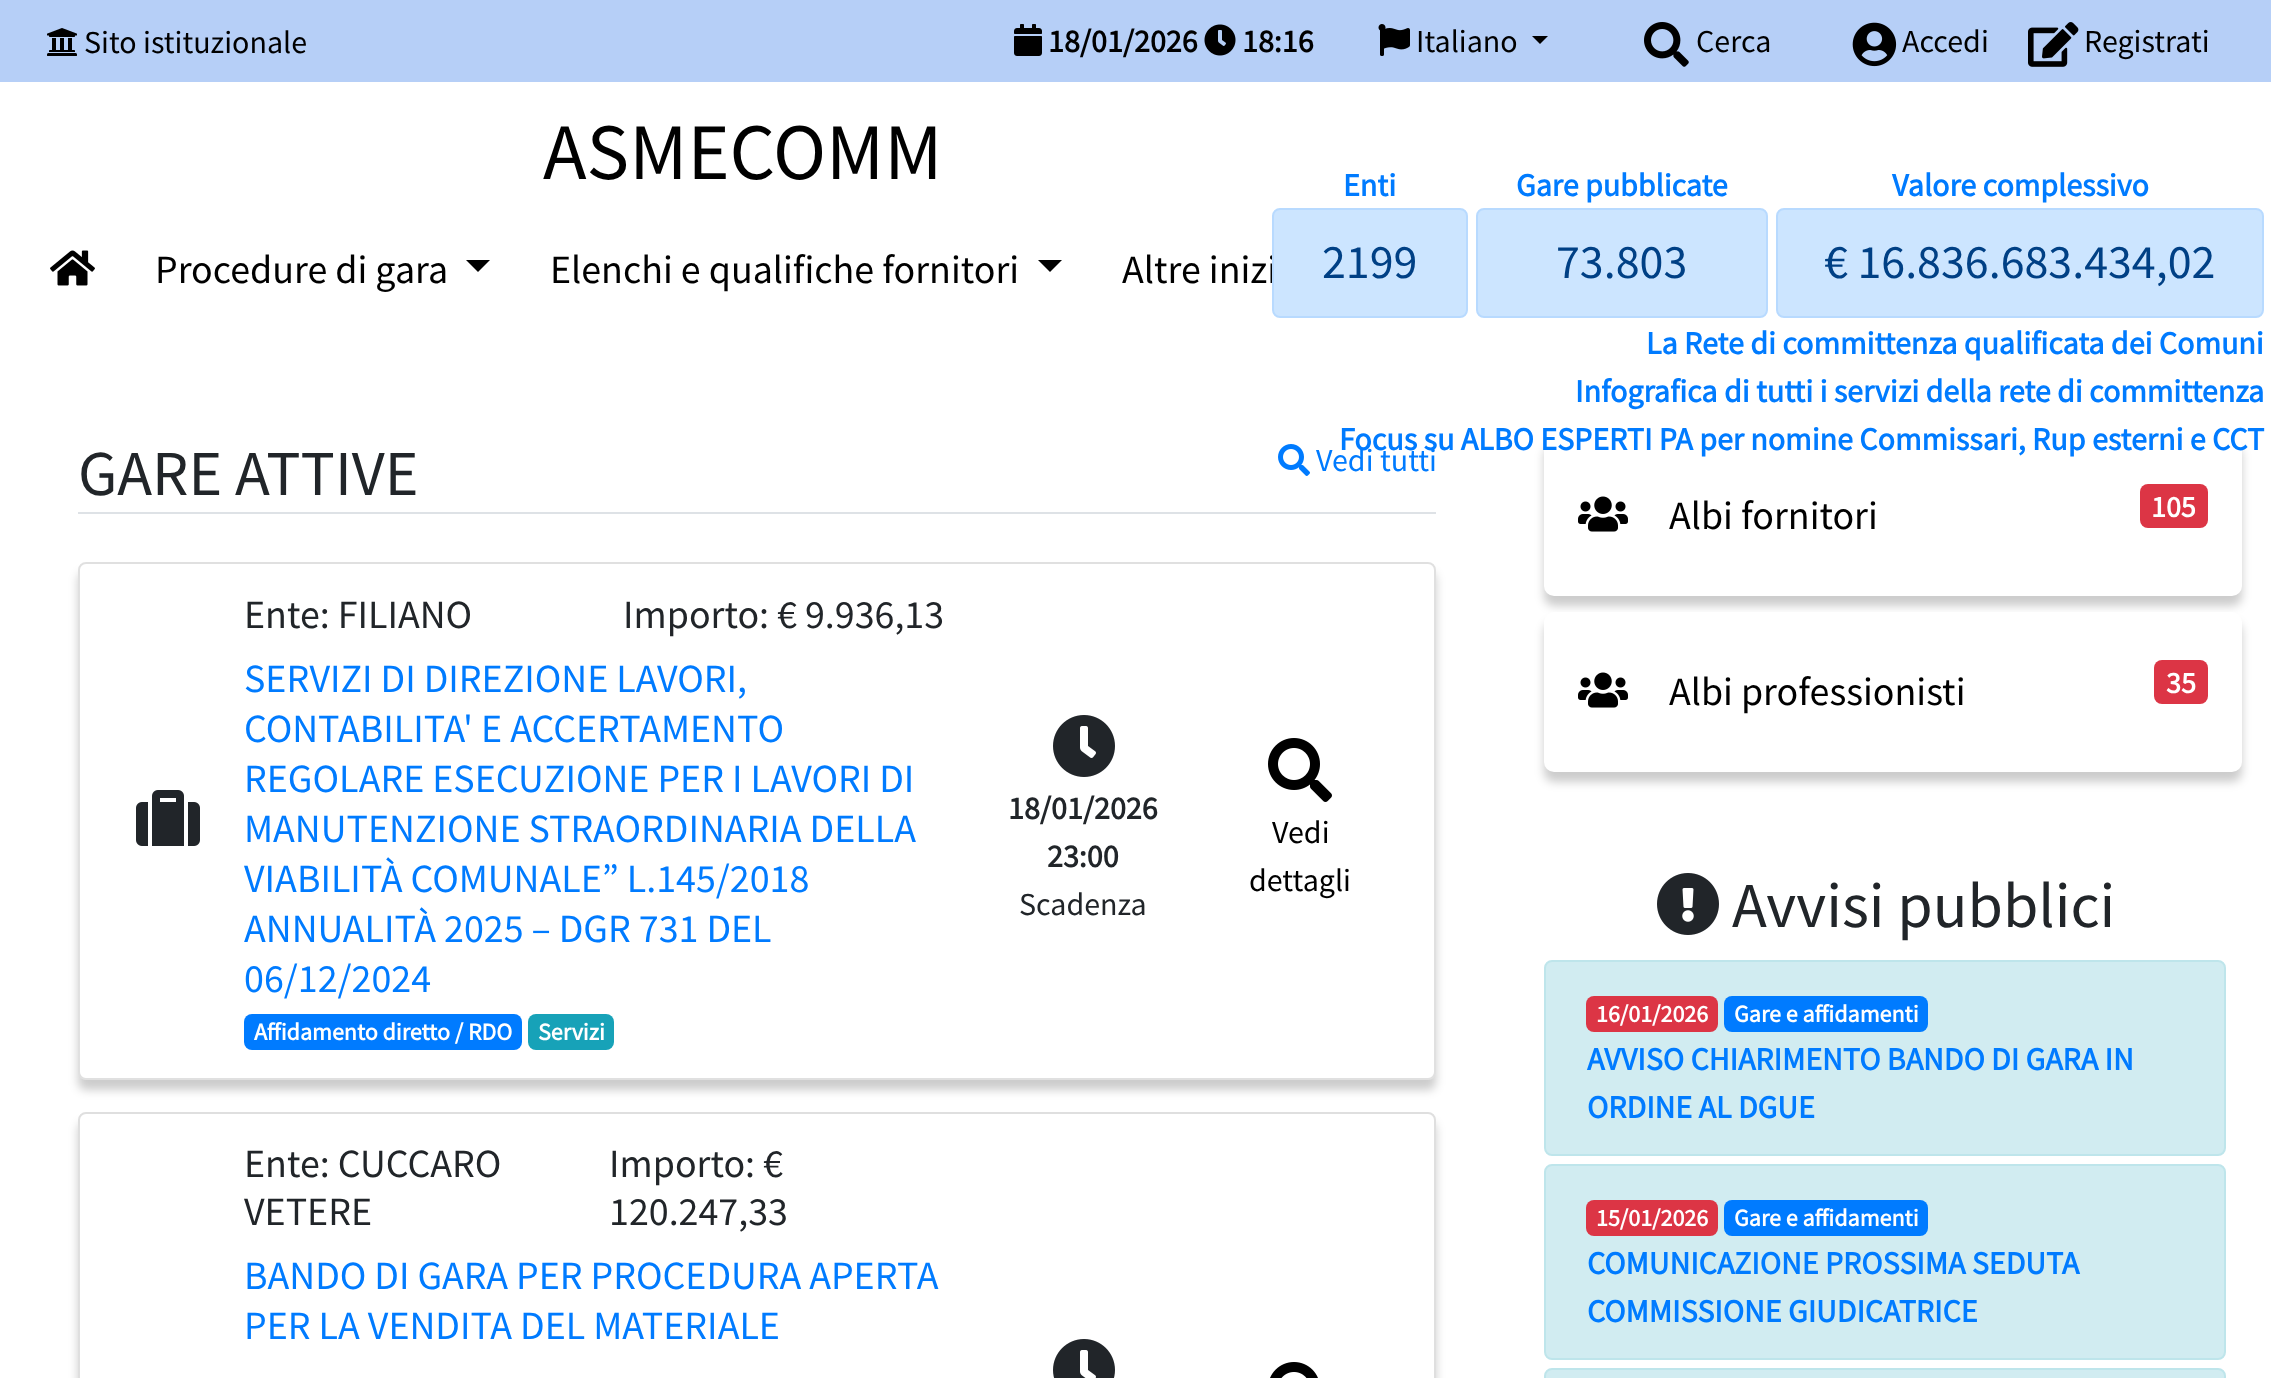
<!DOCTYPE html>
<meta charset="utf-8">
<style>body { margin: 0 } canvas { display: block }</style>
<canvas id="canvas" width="2271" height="1378"></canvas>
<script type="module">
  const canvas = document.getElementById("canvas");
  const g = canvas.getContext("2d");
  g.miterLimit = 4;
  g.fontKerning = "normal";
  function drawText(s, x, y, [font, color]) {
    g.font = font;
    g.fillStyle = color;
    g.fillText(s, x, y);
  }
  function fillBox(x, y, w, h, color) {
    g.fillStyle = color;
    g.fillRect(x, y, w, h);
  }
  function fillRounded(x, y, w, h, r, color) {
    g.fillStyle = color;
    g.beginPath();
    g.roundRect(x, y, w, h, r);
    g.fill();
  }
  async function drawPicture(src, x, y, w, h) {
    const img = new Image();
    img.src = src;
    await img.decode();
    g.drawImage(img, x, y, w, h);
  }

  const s1 = ["32px Source Sans Pro", "#000000"];
  const s2 = ["bold 32px Source Sans Pro", "#000000"];
  const s3 = ["80px Source Sans Pro", "#000000"];
  const s4 = ["40px Source Sans Pro", "#000000"];
  const s5 = ["bold 32px Source Sans Pro", "#007BFF"];
  const s6 = ["48px Source Sans Pro", "#004085"];
  const s7 = ["64px Source Sans Pro", "#212529"];
  const s8 = ["32px Source Sans Pro", "#007BFF"];
  const s9 = ["40px Source Sans Pro", "#212529"];
  const s10 = ["40px Source Sans Pro", "#007BFF"];
  const s11 = ["bold 24px Source Sans Pro", "#FFFFFF"];
  const s12 = ["bold 32px Source Sans Pro", "#212529"];
  const s13 = ["32px Source Sans Pro", "#212529"];
  const s14 = ["bold 30px Source Sans Pro", "#FFFFFF"];

  fillBox(0, 0, 2271, 1378, "#FFFFFF");
  fillBox(0, 0, 2271, 82, "#B6CFF7");
  await drawPicture("pic1.png", 47, 28, 30, 28);
  drawText("Sito istituzionale", 84, 53, s1);
  await drawPicture("pic2.png", 1014, 24, 28, 32);
  drawText("18/01/2026", 1048, 52, s2);
  await drawPicture("pic3.png", 1204, 24, 32, 32);
  drawText("18:16", 1242, 52, s2);
  await drawPicture("pic4.png", 1378, 24, 32, 32);
  drawText("Italiano", 1416, 52, s1);
  g.beginPath();
  g.moveTo(1532, 36);
  g.lineTo(1548, 36);
  g.lineTo(1540, 44);
  g.closePath();
  g.fill();
  await drawPicture("pic5.png", 1644, 22, 45, 45);
  drawText("Cerca", 1696, 52, s1);
  await drawPicture("pic6.png", 1852, 22, 45, 45);
  drawText("Accedi", 1902, 52, s1);
  await drawPicture("pic7.png", 2028, 22, 51, 45);
  drawText("Registrati", 2084, 52, s1);
  drawText("ASMECOMM", 543, 179, s3);
  await drawPicture("pic8.png", 50, 250, 45, 36);
  drawText("Procedure di gara", 155, 283, s4);
  g.beginPath();
  g.moveTo(466, 260);
  g.lineTo(490, 260);
  g.lineTo(478, 272);
  g.closePath();
  g.fill();
  drawText("Elenchi e qualifiche fornitori", 550, 283, s4);
  g.beginPath();
  g.moveTo(1038, 260);
  g.lineTo(1062, 260);
  g.lineTo(1050, 272);
  g.closePath();
  g.fill();
  drawText("Altre inizi", 1122, 283, s4);
  drawText("Enti", 1343, 196, s5);
  g.fillStyle = "#CCE5FF";
  g.beginPath();
  g.roundRect(1273, 209, 194, 108, 7);
  g.fill();
  g.strokeStyle = "#B8DAFF";
  g.lineWidth = 2;
  g.stroke();
  drawText("2199", 1322, 278, s6);
  drawText("Gare pubblicate", 1516, 196, s5);
  g.fillStyle = "#CCE5FF";
  g.beginPath();
  g.roundRect(1477, 209, 290, 108, 7);
  g.fill();
  g.stroke();
  drawText("73.803", 1556, 278, s6);
  drawText("Valore complessivo", 1892, 196, s5);
  g.fillStyle = "#CCE5FF";
  g.beginPath();
  g.roundRect(1777, 209, 486, 108, 7);
  g.fill();
  g.stroke();
  drawText("€ 16.836.683.434,02", 1824, 278, s6);
  drawText("La Rete di committenza qualificata dei Comuni", 1646, 354, s5);
  drawText("Infografica di tutti i servizi della rete di committenza", 1575, 402, s5);
  g.fillStyle = "rgba(0, 0, 0, 0.2)";
  g.filter = "blur(5px)";
  g.beginPath();
  g.roundRect(1544, 446, 698, 160, 10);
  g.fill();
  g.filter = "none";
  fillRounded(1544, 436, 698, 160, 10, "#FFFFFF");
  drawText("Focus su ALBO ESPERTI PA per nomine Commissari, Rup esterni e CCT", 1339, 450, s5);
  fillBox(78, 512, 1358, 2, "#DEE2E6");
  drawText("GARE ATTIVE", 78, 495, s7);
  await drawPicture("pic9.png", 1278, 444, 32, 32);
  drawText("Vedi tutti", 1316, 471, s8);
  g.fillStyle = "rgba(0, 0, 0, 0.2)";
  g.filter = "blur(5px)";
  g.beginPath();
  g.roundRect(78, 572, 1358, 518, 8);
  g.fill();
  g.filter = "none";
  fillRounded(78, 562, 1358, 518, 8, "#FFFFFF");
  g.beginPath();
  g.roundRect(79, 563, 1356, 516, 7);
  g.strokeStyle = "rgba(0, 0, 0, 0.12)";
  g.stroke();
  await drawPicture("pic10.png", 136, 790, 64, 56);
  drawText("Ente: FILIANO", 244, 628, s9);
  drawText("Importo: € 9.936,13", 623, 628, s9);
  drawText("SERVIZI DI DIREZIONE LAVORI,", 244, 692, s10);
  drawText("CONTABILITA' E ACCERTAMENTO", 244, 742, s10);
  drawText("REGOLARE ESECUZIONE PER I LAVORI DI", 244, 792, s10);
  drawText("MANUTENZIONE STRAORDINARIA DELLA", 244, 842, s10);
  drawText("VIABILITÀ COMUNALE” L.145/2018", 244, 892, s10);
  drawText("ANNUALITÀ 2025 – DGR 731 DEL", 244, 942, s10);
  drawText("06/12/2024", 244, 992, s10);
  fillRounded(244, 1014, 278, 36, 8, "#007BFF");
  drawText("Affidamento diretto / RDO", 254, 1040, s11);
  fillRounded(528, 1014, 86, 36, 8, "#17A2B8");
  drawText("Servizi", 538, 1040, s11);
  await drawPicture("pic11.png", 1053, 715, 62, 62);
  drawText("18/01/2026", 1008, 819, s12);
  drawText("23:00", 1047, 867, s12);
  drawText("Scadenza", 1019, 915, s13);
  await drawPicture("pic12.png", 1268, 738, 64, 64);
  drawText("Vedi", 1272, 843, s1);
  drawText("dettagli", 1249, 891, s1);
  g.save();
  g.beginPath();
  g.moveTo(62, 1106);
  g.lineTo(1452, 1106);
  g.lineTo(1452, 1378);
  g.lineTo(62, 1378);
  g.closePath();
  g.moveTo(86, 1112);
  g.lineTo(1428, 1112);
  g.bezierCurveTo(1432.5, 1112, 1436, 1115.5, 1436, 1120);
  g.lineTo(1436, 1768);
  g.bezierCurveTo(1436, 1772.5, 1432.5, 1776, 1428, 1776);
  g.lineTo(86, 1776);
  g.bezierCurveTo(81.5, 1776, 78, 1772.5, 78, 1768);
  g.lineTo(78, 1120);
  g.bezierCurveTo(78, 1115.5, 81.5, 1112, 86, 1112);
  g.closePath();
  g.clip("evenodd");
  g.fillStyle = "rgba(0, 0, 0, 0.2)";
  g.filter = "blur(5px)";
  g.beginPath();
  g.roundRect(78, 1122, 1358, 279, 8);
  g.fill();
  g.filter = "none";
  g.restore();
  g.beginPath();
  g.roundRect(79, 1113, 1356, 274, 7);
  g.strokeStyle = "#DFDFDF";
  g.stroke();
  drawText("Ente: CUCCARO", 244, 1177, s9);
  drawText("VETERE", 244, 1225, s9);
  drawText("Importo: €", 609, 1177, s9);
  drawText("120.247,33", 609, 1225, s9);
  drawText("BANDO DI GARA PER PROCEDURA APERTA", 244, 1289, s10);
  drawText("PER LA VENDITA DEL MATERIALE", 244, 1339, s10);
  await drawPicture("pic13.png", 1053, 1339, 62, 39);
  await drawPicture("pic14.png", 1270, 1362, 48, 16);
  await drawPicture("pic15.png", 1578, 496, 50, 36);
  drawText("Albi fornitori", 1669, 529, s4);
  fillRounded(2140, 484, 68, 44, 8, "#DC3545");
  drawText("105", 2151, 517, s14);
  g.fillStyle = "rgba(0, 0, 0, 0.2)";
  g.filter = "blur(5px)";
  g.beginPath();
  g.roundRect(1544, 622, 698, 160, 10);
  g.fill();
  g.filter = "none";
  fillRounded(1544, 612, 698, 160, 10, "#FFFFFF");
  await drawPicture("pic15.png", 1578, 672, 50, 36);
  drawText("Albi professionisti", 1669, 705, s4);
  fillRounded(2154, 660, 54, 44, 8, "#DC3545");
  drawText("35", 2166, 693, s14);
  await drawPicture("pic16.png", 1657, 873, 62, 62);
  drawText("Avvisi pubblici", 1732, 927, s7);
  g.fillStyle = "#D1ECF1";
  g.beginPath();
  g.roundRect(1545, 961, 680, 194, 7);
  g.fill();
  g.strokeStyle = "#BEE5EB";
  g.stroke();
  fillRounded(1586, 996, 132, 36, 8, "#DC3545");
  drawText("16/01/2026", 1596, 1022, s11);
  fillRounded(1724, 996, 204, 36, 8, "#007BFF");
  drawText("Gare e affidamenti", 1734, 1022, s11);
  drawText("AVVISO CHIARIMENTO BANDO DI GARA IN", 1587, 1070, s5);
  drawText("ORDINE AL DGUE", 1587, 1118, s5);
  g.fillStyle = "#D1ECF1";
  g.beginPath();
  g.roundRect(1545, 1165, 680, 194, 7);
  g.fill();
  g.stroke();
  fillRounded(1586, 1200, 132, 36, 8, "#DC3545");
  drawText("15/01/2026", 1596, 1226, s11);
  fillRounded(1724, 1200, 204, 36, 8, "#007BFF");
  drawText("Gare e affidamenti", 1734, 1226, s11);
  drawText("COMUNICAZIONE PROSSIMA SEDUTA", 1587, 1274, s5);
  drawText("COMMISSIONE GIUDICATRICE", 1587, 1322, s5);
  g.fillStyle = "#D1ECF1";
  g.beginPath();
  g.roundRect(1545, 1369, 680, 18, 7);
  g.fill();
  g.stroke();
</script>
